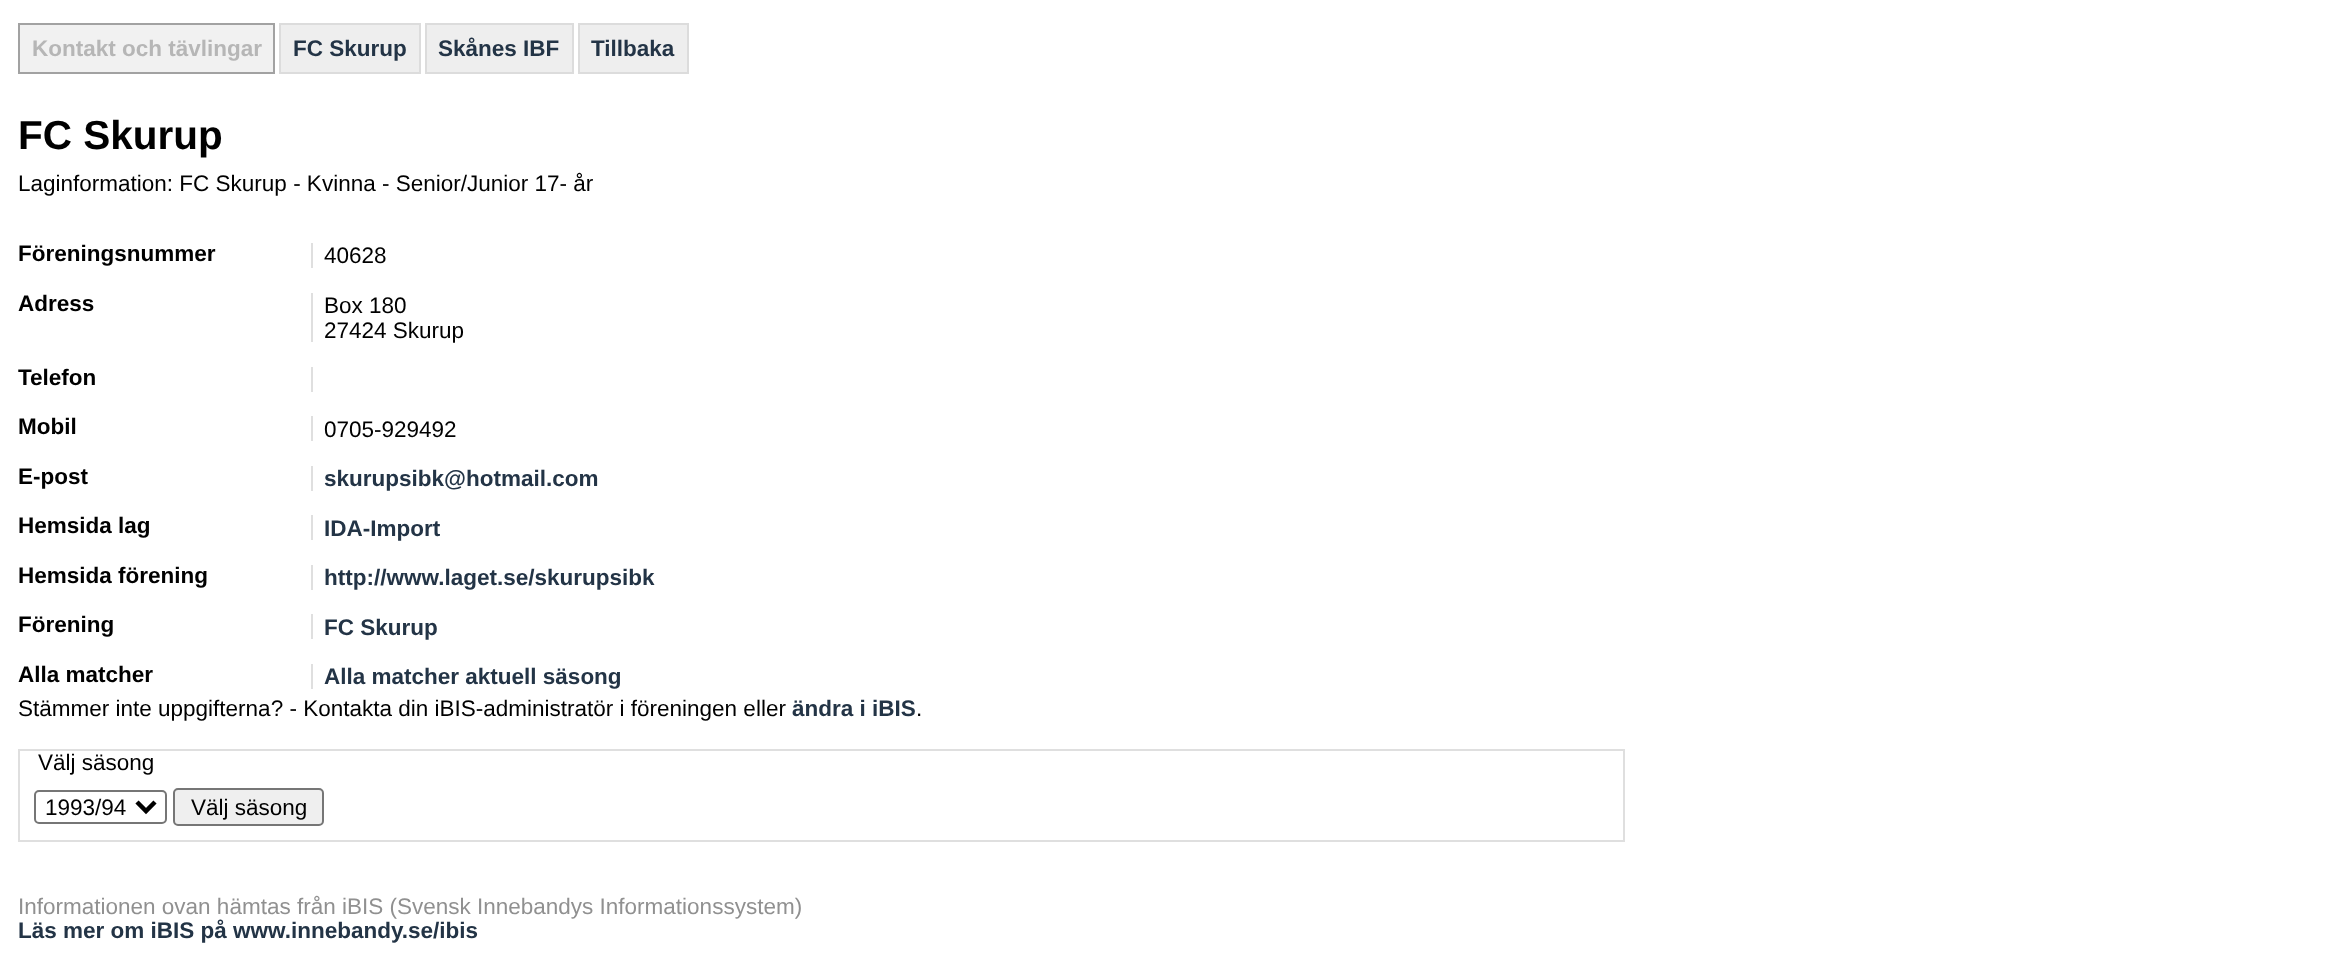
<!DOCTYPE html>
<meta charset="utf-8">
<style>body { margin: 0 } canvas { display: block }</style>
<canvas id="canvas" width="2331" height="965"></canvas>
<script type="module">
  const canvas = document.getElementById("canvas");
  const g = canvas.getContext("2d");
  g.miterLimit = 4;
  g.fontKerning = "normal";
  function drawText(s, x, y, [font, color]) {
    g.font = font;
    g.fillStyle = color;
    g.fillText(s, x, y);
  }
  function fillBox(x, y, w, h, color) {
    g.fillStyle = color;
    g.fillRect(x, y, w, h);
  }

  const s1 = ["bold 22.5px Liberation Sans", "#B6B6B6"];
  const s2 = ["bold 22.5px Liberation Sans", "#233446"];
  const s3 = ["bold 40.5px Liberation Sans", "#000000"];
  const s4 = ["22.5px Liberation Sans", "#000000"];
  const s5 = ["bold 22.5px Liberation Sans", "#000000"];
  const s6 = ["22.5px Liberation Sans", "#909090"];

  fillBox(0, 0, 2331, 965, "#FFFFFF");
  g.fillStyle = "#F1F1F1";
  g.beginPath();
  g.rect(19, 24, 255, 49);
  g.fill();
  g.strokeStyle = "#A2A2A2";
  g.lineWidth = 2;
  g.stroke();
  drawText("Kontakt och tävlingar", 32, 56, s1);
  g.fillStyle = "#EEEEEE";
  g.beginPath();
  g.rect(280, 24, 140, 49);
  g.fill();
  g.strokeStyle = "#DCDCDC";
  g.stroke();
  drawText("FC Skurup", 293, 56, s2);
  g.fillStyle = "#EEEEEE";
  g.beginPath();
  g.rect(426, 24, 147, 49);
  g.fill();
  g.stroke();
  drawText("Skånes IBF", 438, 56, s2);
  g.fillStyle = "#EEEEEE";
  g.beginPath();
  g.rect(579, 24, 109, 49);
  g.fill();
  g.stroke();
  drawText("Tillbaka", 591, 56, s2);
  drawText("FC Skurup", 18, 149, s3);
  drawText("Laginformation: FC Skurup - Kvinna - Senior/Junior 17- år", 18, 191, s4);
  drawText("Föreningsnummer", 18, 261, s5);
  fillBox(311, 243, 2, 25, "#DFDFDF");
  drawText("40628", 324, 263, s4);
  drawText("Adress", 18, 311, s5);
  fillBox(311, 293, 2, 49, "#DFDFDF");
  drawText("Box 180", 324, 313, s4);
  drawText("27424 Skurup", 324, 338, s4);
  drawText("Telefon", 18, 385, s5);
  fillBox(311, 367, 2, 25, "#DFDFDF");
  drawText("Mobil", 18, 434, s5);
  fillBox(311, 416, 2, 25, "#DFDFDF");
  drawText("0705-929492", 324, 437, s4);
  drawText("E-post", 18, 484, s5);
  fillBox(311, 466, 2, 25, "#DFDFDF");
  drawText("skurupsibk@hotmail.com", 324, 486, s2);
  drawText("Hemsida lag", 18, 533, s5);
  fillBox(311, 515, 2, 25, "#DFDFDF");
  drawText("IDA-Import", 324, 536, s2);
  drawText("Hemsida förening", 18, 583, s5);
  fillBox(311, 565, 2, 25, "#DFDFDF");
  drawText("http://www.laget.se/skurupsibk", 324, 585, s2);
  drawText("Förening", 18, 632, s5);
  fillBox(311, 614, 2, 25, "#DFDFDF");
  drawText("FC Skurup", 324, 635, s2);
  drawText("Alla matcher", 18, 682, s5);
  fillBox(311, 664, 2, 25, "#DFDFDF");
  drawText("Alla matcher aktuell säsong", 324, 684, s2);
  drawText("Stämmer inte uppgifterna? - Kontakta din iBIS-administratör i föreningen eller", 18, 716, s4);
  drawText("ändra i iBIS", 792, 716, s2);
  drawText(".", 916, 716, s4);
  g.strokeStyle = "#DFDFDF";
  g.strokeRect(19, 750, 1605, 91);
  drawText("Välj säsong", 38, 770, s4);
  g.beginPath();
  g.roundRect(35, 791, 131, 32, 4);
  g.strokeStyle = "#767676";
  g.stroke();
  g.beginPath();
  g.moveTo(137, 802);
  g.lineTo(146, 811);
  g.lineTo(155, 802);
  g.strokeStyle = "#000000";
  g.lineWidth = 4.5;
  g.stroke();
  drawText("1993/94", 45, 815, s4);
  g.fillStyle = "#EFEFEF";
  g.beginPath();
  g.roundRect(174, 789, 149, 36, 4);
  g.fill();
  g.strokeStyle = "#767676";
  g.lineWidth = 2;
  g.stroke();
  drawText("Välj säsong", 191, 815, s4);
  drawText("Informationen ovan hämtas från iBIS (Svensk Innebandys Informationssystem)", 18, 914, s6);
  drawText("Läs mer om iBIS på www.innebandy.se/ibis", 18, 938, s2);
</script>
